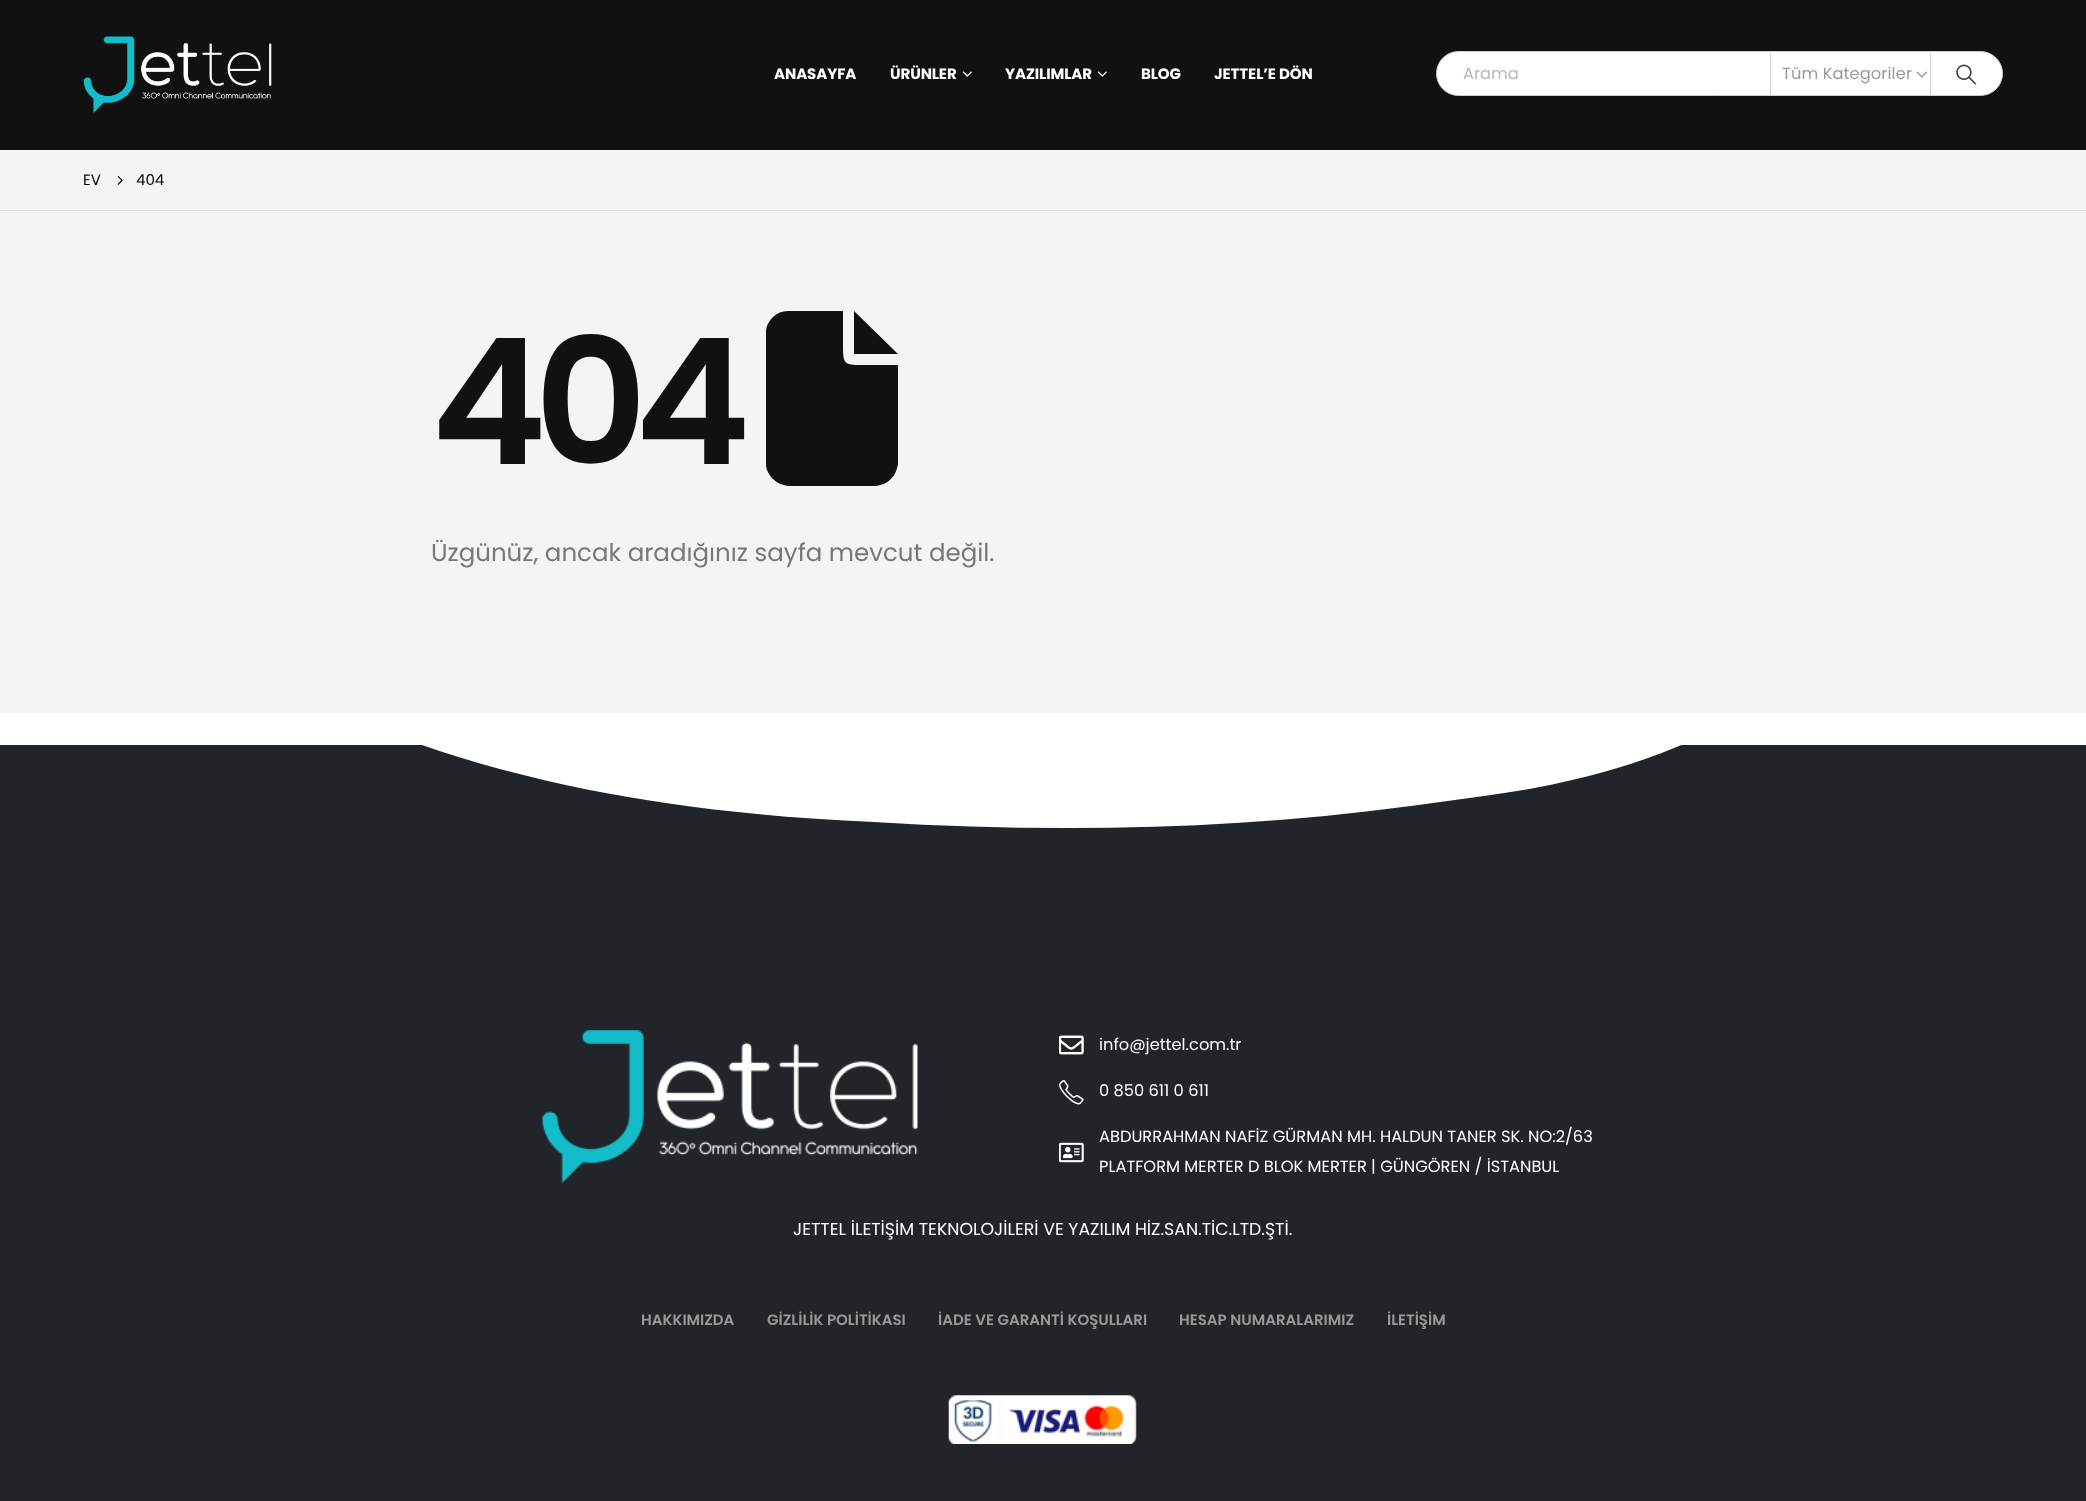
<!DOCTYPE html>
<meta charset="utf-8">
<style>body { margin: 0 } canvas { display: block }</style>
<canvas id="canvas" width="2086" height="1501"></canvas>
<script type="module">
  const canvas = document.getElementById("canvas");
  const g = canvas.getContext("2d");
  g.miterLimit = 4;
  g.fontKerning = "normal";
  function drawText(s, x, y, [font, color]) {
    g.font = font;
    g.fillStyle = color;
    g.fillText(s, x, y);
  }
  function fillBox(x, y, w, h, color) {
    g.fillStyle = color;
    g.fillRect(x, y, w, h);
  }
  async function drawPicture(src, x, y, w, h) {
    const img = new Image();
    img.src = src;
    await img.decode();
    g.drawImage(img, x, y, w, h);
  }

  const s1 = ["bold 15px Poppins", "#FFFFFF"];
  const s2 = ["16.25px Poppins", "#B8B8B8"];
  const s3 = ["16.25px Poppins", "#999999"];
  const s4 = ["15px Poppins", "#000000"];
  const s5 = ["600 175px Poppins", "#111111"];
  const s6 = ["24.5px Poppins", "#777777"];
  const s7 = ["16.25px Poppins", "#FFFFFF"];
  const s8 = ["17.3px Poppins", "#FFFFFF"];
  const s9 = ["600 15px Poppins", "#999999"];

  fillBox(0, 0, 2086, 1501, "#F4F4F4");
  fillBox(0, 0, 2086, 150, "#111111");
  await drawPicture("pic1.png", 83, 36, 189, 77);
  g.letterSpacing = "-0.1px";
  drawText("ANASAYFA", 774, 79, s1);
  drawText("ÜRÜNLER", 890, 79, s1);
  await drawPicture("pic2.png", 962, 71, 10, 6);
  drawText("YAZILIMLAR", 1005, 79, s1);
  await drawPicture("pic2.png", 1097, 71, 10, 6);
  drawText("BLOG", 1141, 79, s1);
  drawText("JETTEL’E DÖN", 1214, 79, s1);
  g.beginPath();
  g.roundRect(1436.5, 51.5, 566, 44, 22);
  g.fill();
  g.strokeStyle = "#CCCCCC";
  g.stroke();
  g.letterSpacing = "0px";
  drawText("Arama", 1463, 79, s2);
  fillBox(1930, 53, 1, 42, "#CCCCCC");
  fillBox(1770, 53, 1, 42, "#CCCCCC");
  g.letterSpacing = "0.1px";
  drawText("Tüm Kategoriler", 1782, 79, s3);
  await drawPicture("pic3.png", 1916, 71, 12, 7);
  await drawPicture("pic4.png", 1956, 64, 21, 21);
  fillBox(0, 210, 2086, 1, "#DFDFDF");
  g.letterSpacing = "0px";
  drawText("EV", 83, 185, s4);
  await drawPicture("pic5.png", 117, 175, 6, 10);
  drawText("404", 136, 185, s4);
  g.letterSpacing = "-12.5px";
  drawText("404", 431, 464, s5);
  g.beginPath();
  g.moveTo(766, 332);
  g.bezierCurveTo(766, 326, 769, 321, 773, 317);
  g.bezierCurveTo(777, 313, 782, 311, 788, 311);
  g.lineTo(843, 311);
  g.lineTo(843, 347);
  g.bezierCurveTo(843, 364, 845, 365, 861, 365);
  g.lineTo(898, 365);
  g.lineTo(898, 464);
  g.bezierCurveTo(897, 470, 895, 475, 891, 479);
  g.bezierCurveTo(887, 483, 882, 485, 876, 486);
  g.lineTo(788, 486);
  g.bezierCurveTo(782, 485, 777, 483, 773, 479);
  g.bezierCurveTo(769, 475, 766, 470, 766, 464);
  g.closePath();
  g.moveTo(898, 354);
  g.lineTo(854, 354);
  g.lineTo(854, 311);
  g.closePath();
  g.fill();
  g.letterSpacing = "0px";
  drawText("Üzgünüz, ancak aradığınız sayfa mevcut değil.", 431, 561, s6);
  fillBox(0, 745, 2086, 756, "#212529");
  g.fillStyle = "#FFFFFF";
  g.beginPath();
  g.moveTo(1689, 742);
  g.bezierCurveTo(1651, 758, 1612, 771, 1572, 780);
  g.bezierCurveTo(1543, 787, 1513, 792, 1484, 796);
  g.lineTo(1411, 806);
  g.bezierCurveTo(1232, 830, 1054, 833, 874, 822);
  g.bezierCurveTo(835, 820, 796, 818, 757, 814);
  g.bezierCurveTo(642, 803, 528, 782, 419, 744);
  g.closePath();
  g.fill();
  fillBox(0, 713, 2086, 32, "#FFFFFF");
  await drawPicture("pic6.png", 542, 1030, 376, 153);
  await drawPicture("pic7.png", 1059, 1035, 25, 20);
  drawText("info@jettel.com.tr", 1099, 1050, s7);
  await drawPicture("pic8.png", 1059, 1080, 25, 25);
  drawText("0 850 611 0 611", 1099, 1096, s7);
  await drawPicture("pic9.png", 1059, 1142, 25, 21);
  drawText("ABDURRAHMAN NAFİZ GÜRMAN MH. HALDUN TANER SK. NO:2/63", 1099, 1142, s7);
  drawText("PLATFORM MERTER D BLOK MERTER | GÜNGÖREN / İSTANBUL", 1099, 1172, s7);
  drawText("JETTEL İLETİŞİM TEKNOLOJİLERİ VE YAZILIM HİZ.SAN.TİC.LTD.ŞTİ.", 793, 1235, s8);
  drawText("HAKKIMIZDA", 641, 1325, s9);
  drawText("GİZLİLİK POLİTİKASI", 767, 1325, s9);
  drawText("İADE VE GARANTİ KOŞULLARI", 938, 1325, s9);
  drawText("HESAP NUMARALARIMIZ", 1179, 1325, s9);
  drawText("İLETİŞİM", 1387, 1325, s9);
  await drawPicture("pic10.png", 948, 1395, 189, 49);
</script>
